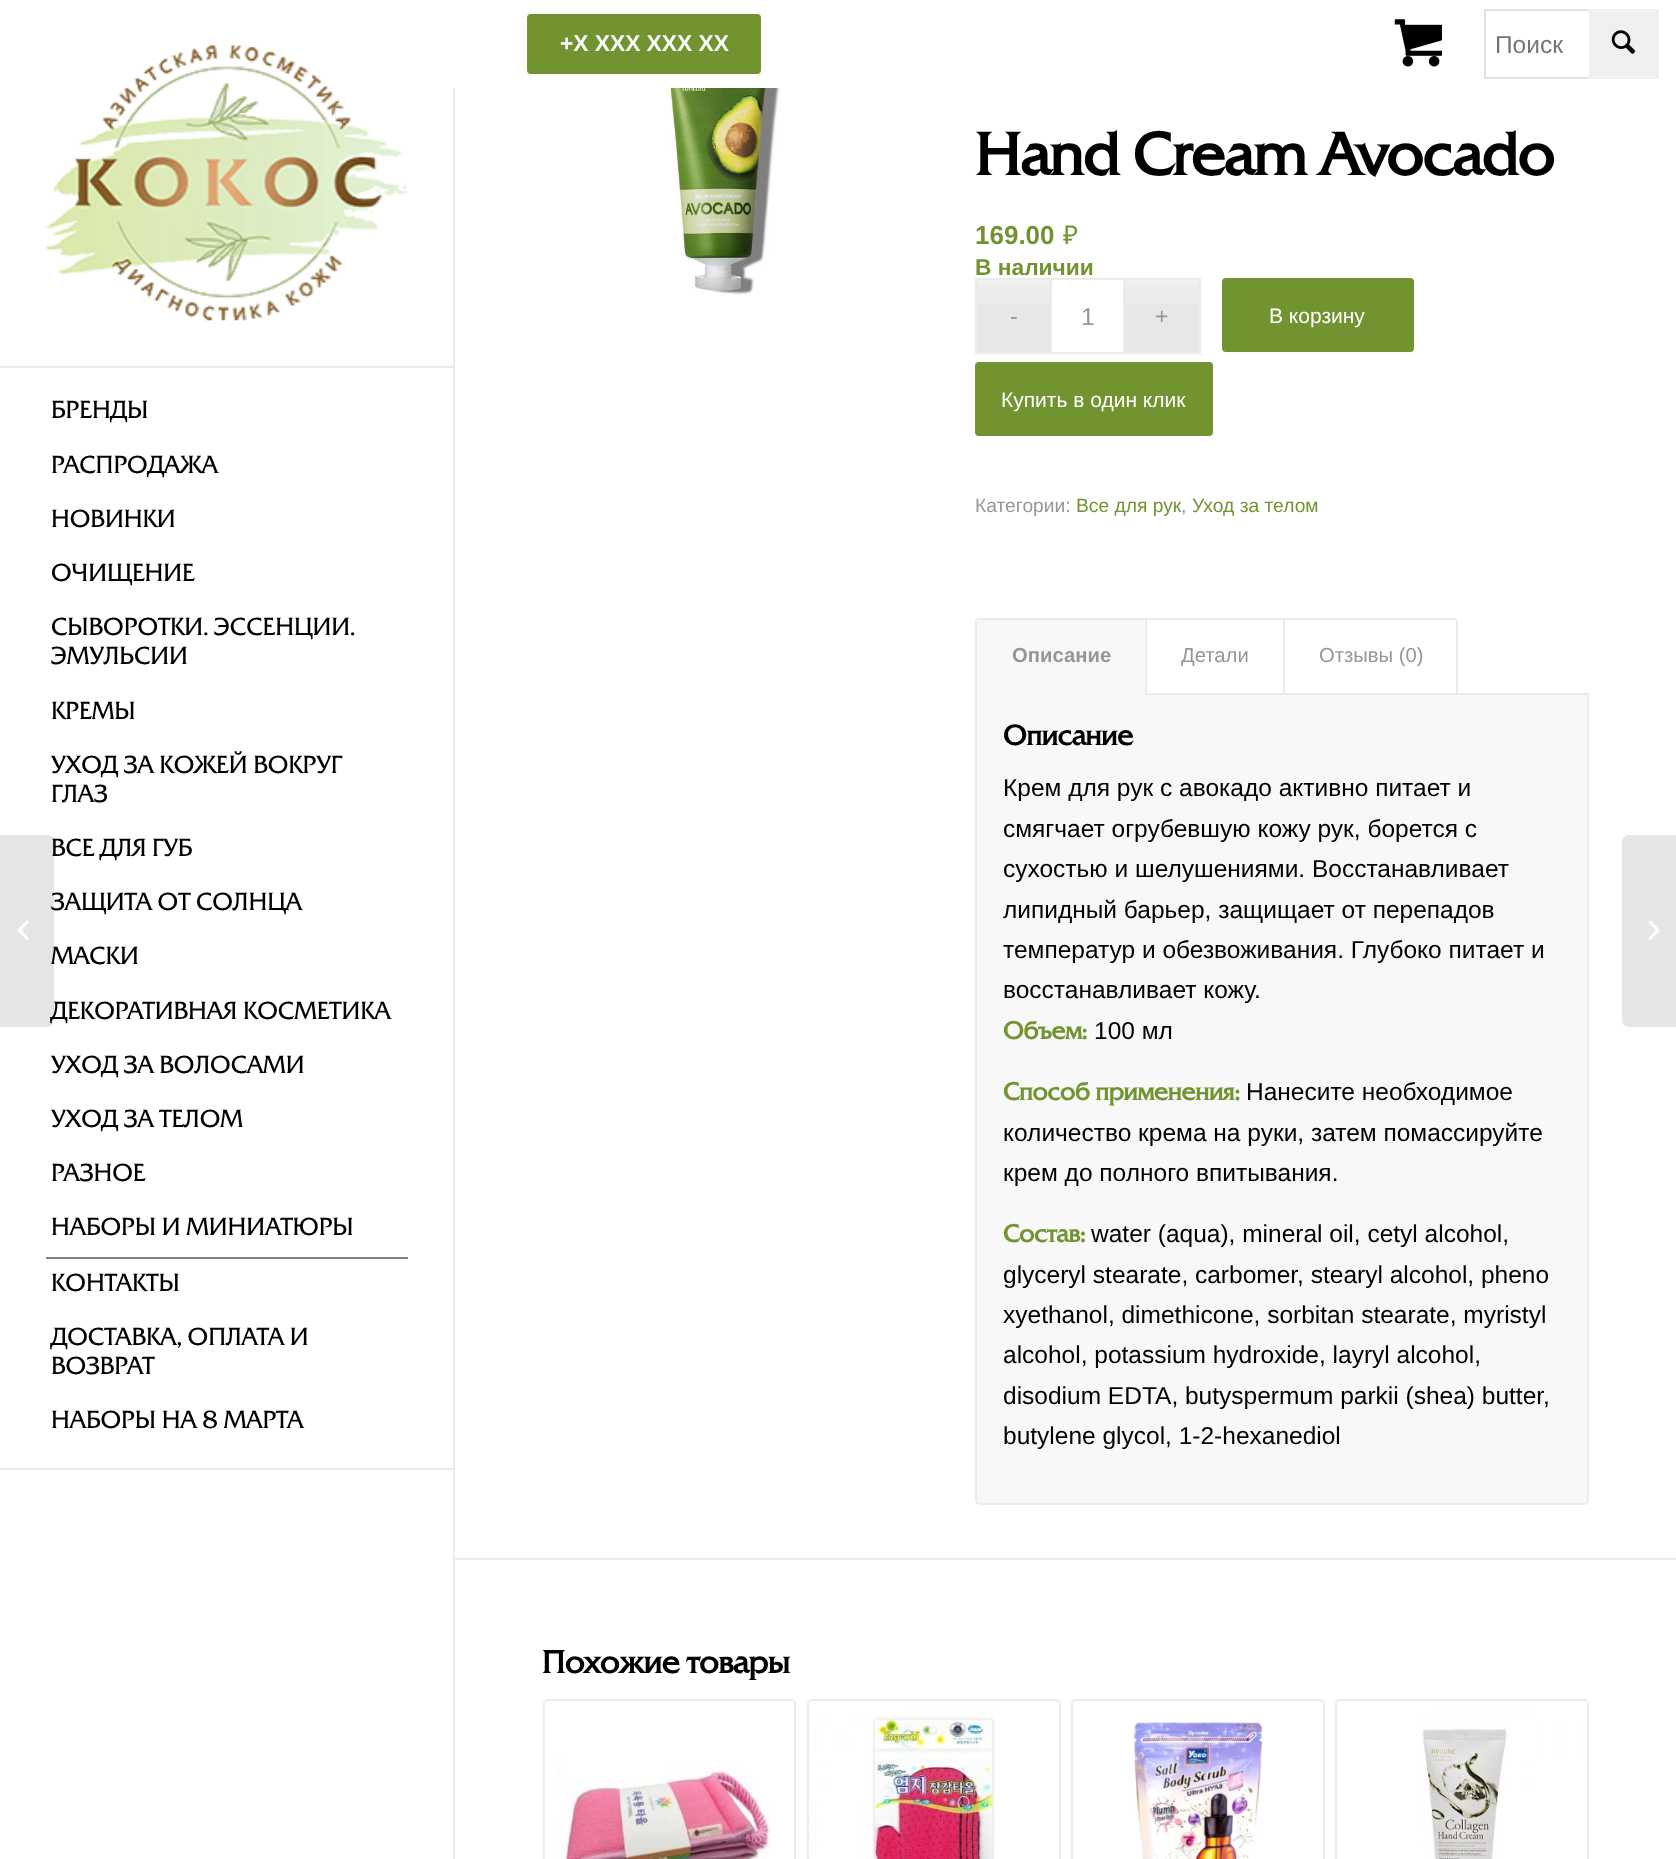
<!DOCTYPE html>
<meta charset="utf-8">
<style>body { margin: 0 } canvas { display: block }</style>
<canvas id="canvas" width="1676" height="1859"></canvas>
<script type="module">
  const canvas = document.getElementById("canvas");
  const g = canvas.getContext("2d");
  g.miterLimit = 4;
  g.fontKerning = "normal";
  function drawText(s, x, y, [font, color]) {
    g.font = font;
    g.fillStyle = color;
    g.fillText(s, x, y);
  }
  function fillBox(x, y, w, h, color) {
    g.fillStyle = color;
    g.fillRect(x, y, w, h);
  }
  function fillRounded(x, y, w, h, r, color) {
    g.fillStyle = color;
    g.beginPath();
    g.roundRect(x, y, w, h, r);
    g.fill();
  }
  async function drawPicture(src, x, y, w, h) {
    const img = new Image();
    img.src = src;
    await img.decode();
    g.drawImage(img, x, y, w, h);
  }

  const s1 = ["bold 22.75px Liberation Sans", "#FFFFFF"];
  const s2 = ["24.5px Liberation Sans", "#757575"];
  const s3 = ["24.5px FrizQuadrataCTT", "#000000"];
  const s4 = ["bold 59.5px FrizQuadrataCTT", "#000000"];
  const s5 = ["bold 26px Liberation Sans", "#719430"];
  const s6 = ["26px Noto Sans", "#719430"];
  const s7 = ["bold 22.75px Liberation Sans", "#719430"];
  const s8 = ["23px Liberation Sans", "#969696"];
  const s9 = ["24.5px Liberation Sans", "#969696"];
  const s10 = ["21px Liberation Sans", "#FFFFFF"];
  const s11 = ["19.25px Liberation Sans", "#969696"];
  const s12 = ["19.25px Liberation Sans", "#719430"];
  const s13 = ["bold 20.25px Liberation Sans", "#969696"];
  const s14 = ["20.25px Liberation Sans", "#969696"];
  const s15 = ["bold 28px FrizQuadrataCTT", "#000000"];
  const s16 = ["24.5px Liberation Sans", "#000000"];
  const s17 = ["bold 24.5px FrizQuadrataCTT", "#719430"];
  const s18 = ["bold 31.5px FrizQuadrataCTT", "#000000"];

  fillBox(0, 0, 1676, 1859, "#FFFFFF");
  g.fillStyle = "#719430";
  g.beginPath();
  g.roundRect(529, 16, 230, 56, 2);
  g.fill();
  g.strokeStyle = "#719430";
  g.lineWidth = 4;
  g.stroke();
  drawText("+X XXX XXX XX", 560, 51, s1);
  await drawPicture("pic1.png", 1394, 19, 48, 48);
  g.strokeStyle = "#E1E1E1";
  g.lineWidth = 2;
  g.strokeRect(1485, 10, 173, 68);
  drawText("Поиск", 1495, 53, s2);
  fillBox(1589, 9, 70, 70, "#EFEFEF");
  await drawPicture("pic2.png", 1611, 30, 25, 24);
  g.fillStyle = "rgba(0, 0, 0, 0.1)";
  g.beginPath();
  g.roundRect(0, 835, 54, 192, [0, 7, 7, 0]);
  g.fill();
  await drawPicture("pic3.png", 17, 920, 12, 20);
  fillBox(0, 1468, 453, 2, "#EBEBEB");
  fillBox(0, 366, 453, 2, "#EBEBEB");
  await drawPicture("pic4.png", 45, 45, 363, 276);
  drawText("БРЕНДЫ", 51, 418, s3);
  drawText("РАСПРОДАЖА", 51, 473, s3);
  drawText("НОВИНКИ", 51, 527, s3);
  drawText("ОЧИЩЕНИЕ", 51, 581, s3);
  drawText("СЫВОРОТКИ. ЭССЕНЦИИ.", 51, 635, s3);
  drawText("ЭМУЛЬСИИ", 51, 664, s3);
  drawText("КРЕМЫ", 51, 719, s3);
  drawText("УХОД ЗА КОЖЕЙ ВОКРУГ", 51, 773, s3);
  drawText("ГЛАЗ", 51, 802, s3);
  drawText("ВСЕ ДЛЯ ГУБ", 51, 856, s3);
  drawText("ЗАЩИТА ОТ СОЛНЦА", 51, 910, s3);
  drawText("МАСКИ", 51, 964, s3);
  drawText("ДЕКОРАТИВНАЯ КОСМЕТИКА", 51, 1019, s3);
  drawText("УХОД ЗА ВОЛОСАМИ", 51, 1073, s3);
  drawText("УХОД ЗА ТЕЛОМ", 51, 1127, s3);
  drawText("РАЗНОЕ", 51, 1181, s3);
  fillBox(46, 1257, 362, 2, "#808080");
  drawText("НАБОРЫ И МИНИАТЮРЫ", 51, 1235, s3);
  drawText("КОНТАКТЫ", 51, 1291, s3);
  drawText("ДОСТАВКА, ОПЛАТА И", 51, 1345, s3);
  drawText("ВОЗВРАТ", 51, 1374, s3);
  drawText("НАБОРЫ НА 8 МАРТА", 51, 1428, s3);
  fillBox(453, 88, 2, 1771, "#EBEBEB");
  await drawPicture("pic5.png", 663, 88, 123, 207);
  drawText("Hand Cream Avocado", 975, 175, s4);
  drawText("169.00", 975, 244, s5);
  drawText("₽", 1063, 244, s6);
  drawText("В наличии", 975, 275, s7);
  fillBox(977, 280, 73, 72, "#E7E7E7");
  await drawPicture("pic6.png", 977, 280, 73, 24);
  fillBox(1125, 280, 74, 72, "#E7E7E7");
  await drawPicture("pic7.png", 1125, 280, 74, 24);
  drawText("-", 1010, 324, s8);
  fillBox(975, 278, 75, 2, "#EBEBEB");
  fillBox(975, 352, 75, 2, "#EBEBEB");
  fillBox(975, 278, 2, 76, "#EBEBEB");
  g.strokeStyle = "#EBEBEB";
  g.strokeRect(1051, 279, 73, 74);
  drawText("1", 1081, 325, s9);
  drawText("+", 1155, 324, s8);
  fillBox(1125, 278, 76, 2, "#EBEBEB");
  fillBox(1199, 278, 2, 76, "#EBEBEB");
  fillBox(1125, 352, 76, 2, "#EBEBEB");
  fillRounded(1222, 278, 192, 74, 4, "#719430");
  drawText("В корзину", 1269, 323, s10);
  fillRounded(975, 362, 238, 74, 4, "#719430");
  drawText("Купить в один клик", 1001, 407, s10);
  drawText("Категории:", 975, 512, s11);
  drawText("Все для рук", 1076, 512, s12);
  drawText(",", 1181, 512, s11);
  drawText("Уход за телом", 1192, 512, s12);
  g.fillStyle = "#F8F8F8";
  g.beginPath();
  g.roundRect(976, 694, 612, 810, [0, 0, 4, 4]);
  g.fill();
  g.stroke();
  fillBox(975, 618, 170, 77, "#F8F8F8");
  fillBox(1145, 618, 140, 2, "#EBEBEB");
  fillBox(977, 618, 169, 2, "#EBEBEB");
  fillBox(1145, 618, 2, 77, "#EBEBEB");
  fillBox(975, 620, 2, 75, "#EBEBEB");
  drawText("Описание", 1012, 662, s13);
  fillBox(1283, 618, 2, 77, "#EBEBEB");
  drawText("Детали", 1181, 662, s14);
  fillBox(1283, 618, 173, 2, "#EBEBEB");
  fillBox(1456, 620, 2, 75, "#EBEBEB");
  drawText("Отзывы (0)", 1319, 662, s14);
  drawText("Описание", 1003, 745, s15);
  drawText("Крем для рук с авокадо активно питает и", 1003, 796, s16);
  drawText("смягчает огрубевшую кожу рук, борется с", 1003, 837, s16);
  drawText("сухостью и шелушениями. Восстанавливает", 1003, 877, s16);
  drawText("липидный барьер, защищает от перепадов", 1003, 918, s16);
  drawText("температур и обезвоживания. Глубоко питает и", 1003, 958, s16);
  drawText("восстанавливает кожу.", 1003, 998, s16);
  drawText("Объем:", 1003, 1039, s17);
  drawText("100 мл", 1094, 1039, s16);
  drawText("Способ применения:", 1003, 1100, s17);
  drawText("Нанесите необходимое", 1246, 1100, s16);
  drawText("количество крема на руки, затем помассируйте", 1003, 1141, s16);
  drawText("крем до полного впитывания.", 1003, 1181, s16);
  drawText("Состав:", 1003, 1242, s17);
  drawText("water (aqua), mineral oil, cetyl alcohol,", 1091, 1242, s16);
  drawText("glyceryl stearate, carbomer, stearyl alcohol, pheno", 1003, 1283, s16);
  drawText("xyethanol, dimethicone, sorbitan stearate, myristyl", 1003, 1323, s16);
  drawText("alcohol, potassium hydroxide, layryl alcohol,", 1003, 1363, s16);
  drawText("disodium EDTA, butyspermum parkii (shea) butter,", 1003, 1404, s16);
  drawText("butylene glycol, 1-2-hexanediol", 1003, 1444, s16);
  fillBox(455, 1558, 1221, 2, "#EBEBEB");
  drawText("Похожие товары", 542, 1673, s18);
  g.beginPath();
  g.roundRect(544, 1700, 251, 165, 4);
  g.stroke();
  await drawPicture("pic8.png", 544, 1701, 250, 158);
  g.beginPath();
  g.roundRect(808, 1700, 252, 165, 4);
  g.stroke();
  await drawPicture("pic9.png", 809, 1701, 186, 158);
  g.beginPath();
  g.roundRect(1072, 1700, 252, 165, 4);
  g.stroke();
  await drawPicture("pic10.png", 1073, 1701, 190, 158);
  g.beginPath();
  g.roundRect(1336, 1700, 252, 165, 4);
  g.stroke();
  await drawPicture("pic11.png", 1422, 1701, 165, 158);
  g.fillStyle = "#E6E6E6";
  g.beginPath();
  g.moveTo(1629, 835);
  g.lineTo(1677, 835);
  g.lineTo(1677, 1027);
  g.lineTo(1629, 1027);
  g.bezierCurveTo(1625, 1027, 1622, 1024, 1622, 1020);
  g.lineTo(1622, 842);
  g.bezierCurveTo(1622, 838, 1625, 835, 1629, 835);
  g.closePath();
  g.fill();
  await drawPicture("pic12.png", 1648, 920, 12, 20);
</script>
